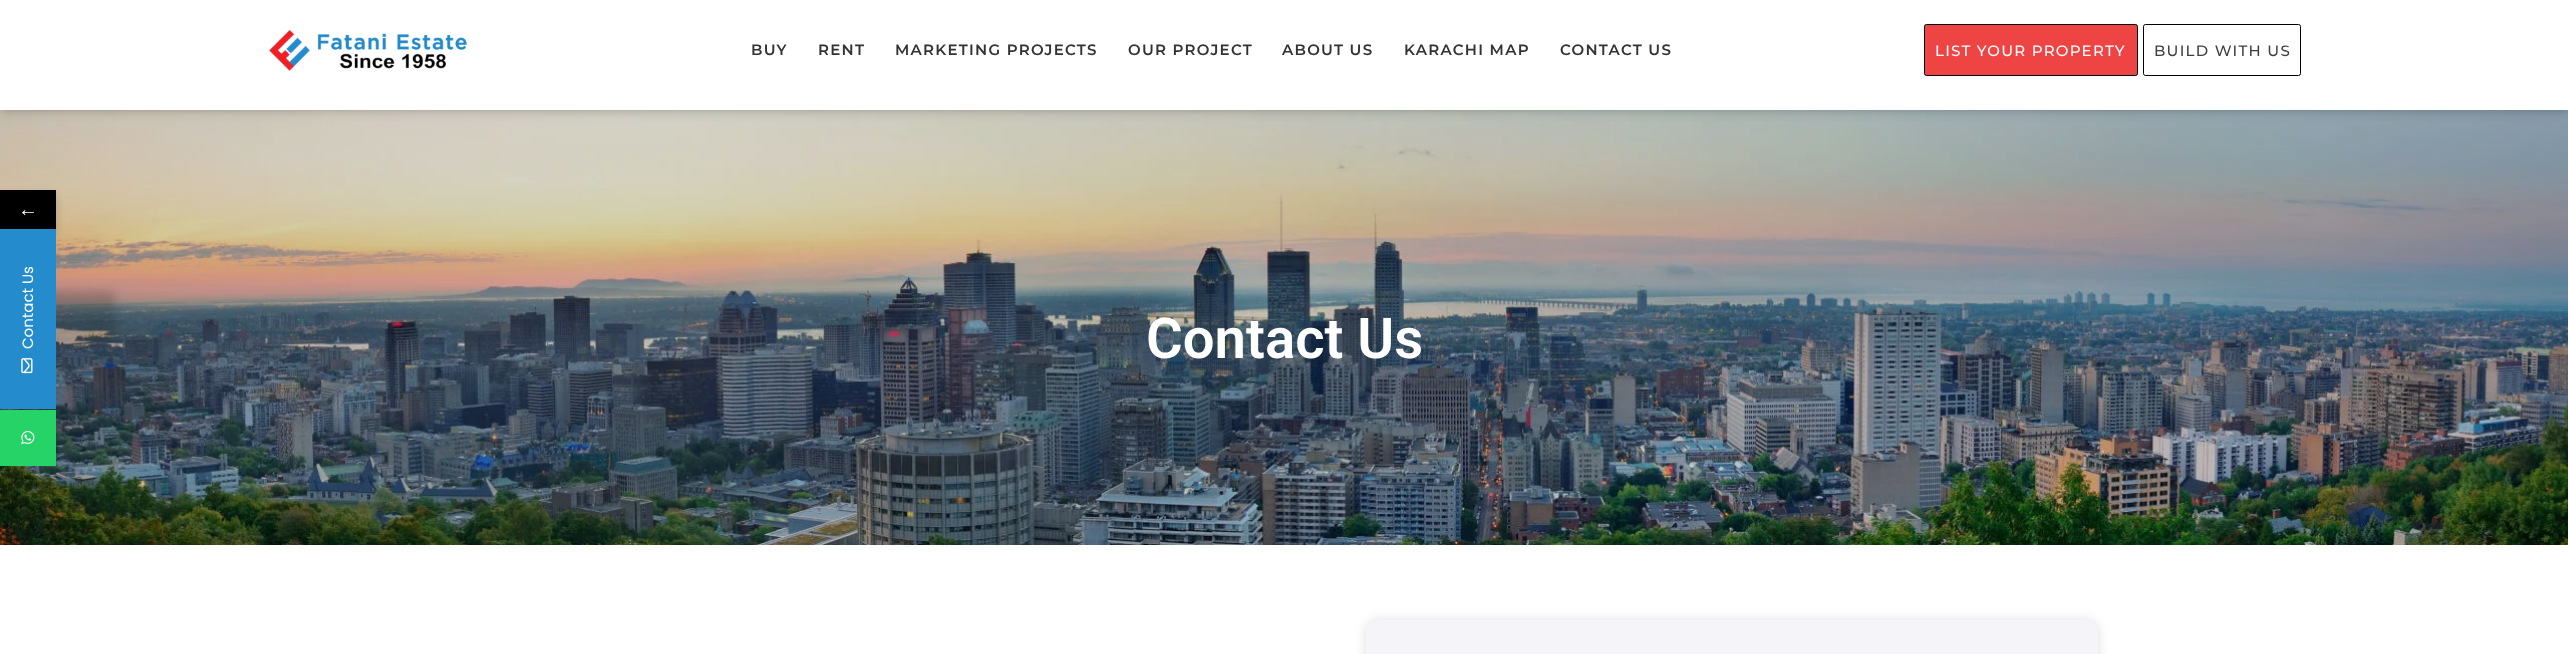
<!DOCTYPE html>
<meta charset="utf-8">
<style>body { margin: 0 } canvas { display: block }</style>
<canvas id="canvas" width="2568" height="654"></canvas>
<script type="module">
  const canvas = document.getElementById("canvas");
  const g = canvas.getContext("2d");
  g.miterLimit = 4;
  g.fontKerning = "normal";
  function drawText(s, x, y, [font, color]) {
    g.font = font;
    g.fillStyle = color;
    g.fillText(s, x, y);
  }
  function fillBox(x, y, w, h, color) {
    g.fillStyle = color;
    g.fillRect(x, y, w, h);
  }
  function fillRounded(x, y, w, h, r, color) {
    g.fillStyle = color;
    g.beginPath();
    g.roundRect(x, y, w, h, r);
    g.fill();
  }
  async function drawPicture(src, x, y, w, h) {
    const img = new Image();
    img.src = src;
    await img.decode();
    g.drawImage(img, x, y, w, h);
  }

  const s1 = ["600 15px Montserrat", "#333333"];
  const s2 = ["500 15px Montserrat", "#FFFFFF"];
  const s3 = ["500 15px Montserrat", "#404040"];
  const s4 = ["20px Liberation Serif", "#FFFFFF"];
  const s5 = ["600 56.25px Roboto", "#FFFFFF"];

  fillBox(0, 0, 2568, 654, "#FFFFFF");
  await drawPicture("pic4.png", 0, 110, 2568, 435);
  g.fillStyle = "rgba(0, 0, 0, 0.1)";
  g.filter = "blur(2.5px)";
  g.beginPath();
  g.rect(3, 5, 2563, 105);
  g.fill();
  g.filter = "none";
  g.filter = "blur(4px)";
  g.beginPath();
  g.rect(1, 6, 2567, 108);
  g.fill();
  g.filter = "none";
  fillBox(0, 0, 2568, 110, "#FFFFFF");
  await drawPicture("pic1.png", 269, 29, 198, 42);
  g.letterSpacing = "1.25px";
  drawText("BUY", 751, 55, s1);
  drawText("RENT", 818, 55, s1);
  drawText("MARKETING PROJECTS", 895, 55, s1);
  drawText("OUR PROJECT", 1128, 55, s1);
  drawText("ABOUT US", 1282, 55, s1);
  drawText("KARACHI MAP", 1404, 55, s1);
  drawText("CONTACT US", 1560, 55, s1);
  g.fillStyle = "#EF4444";
  g.beginPath();
  g.roundRect(1924.5, 24.5, 213, 51, 2);
  g.fill();
  g.strokeStyle = "#000000";
  g.stroke();
  drawText("LIST YOUR PROPERTY", 1935, 56, s2);
  g.beginPath();
  g.roundRect(2143.5, 24.5, 157, 51, 2);
  g.stroke();
  drawText("BUILD WITH US", 2154, 56, s3);
  g.fillStyle = "rgba(0, 0, 0, 0.16)";
  g.filter = "blur(4px)";
  g.beginPath();
  g.rect(0, 194, 56, 40);
  g.fill();
  g.filter = "none";
  fillBox(0, 190, 56, 39, "#000000");
  g.letterSpacing = "0px";
  drawText("←", 18, 216, s4);
  g.fillStyle = "rgba(0, 0, 0, 0.16)";
  g.filter = "blur(4px)";
  g.beginPath();
  g.rect(-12, 291, 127, 57);
  g.fill();
  g.filter = "none";
  fillBox(0, 229, 56, 180, "#248CCC");
  g.font = "15px Poppins";
  g.fillStyle = "#FFFFFF";
  g.save();
  g.translate(33, 349);
  g.rotate(-90 * Math.PI / 180);
  g.fillText("Contact Us", 0, 0);
  g.restore();
  await drawPicture("pic2.png", 21, 358, 12, 16);
  fillBox(0, 410, 56, 56, "#26D367");
  await drawPicture("pic3.png", 21, 430, 14, 14);
  drawText("Contact Us", 1146, 358, s5);
  g.save();
  g.beginPath();
  g.moveTo(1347, 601);
  g.lineTo(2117, 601);
  g.lineTo(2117, 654);
  g.lineTo(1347, 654);
  g.closePath();
  g.moveTo(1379, 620);
  g.lineTo(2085, 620);
  g.bezierCurveTo(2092, 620, 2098, 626, 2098, 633);
  g.lineTo(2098, 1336);
  g.bezierCurveTo(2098, 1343, 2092, 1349, 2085, 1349);
  g.lineTo(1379, 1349);
  g.bezierCurveTo(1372, 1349, 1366, 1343, 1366, 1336);
  g.lineTo(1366, 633);
  g.bezierCurveTo(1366, 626, 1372, 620, 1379, 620);
  g.closePath();
  g.clip("evenodd");
  g.fillStyle = "rgba(0, 0, 0, 0.13)";
  g.filter = "blur(6px)";
  g.beginPath();
  g.roundRect(1366, 620, 732, 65, 13);
  g.fill();
  g.filter = "none";
  g.restore();
  fillRounded(1366, 620, 732, 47, 13, "rgba(139, 149, 191, 0.09)");
</script>
